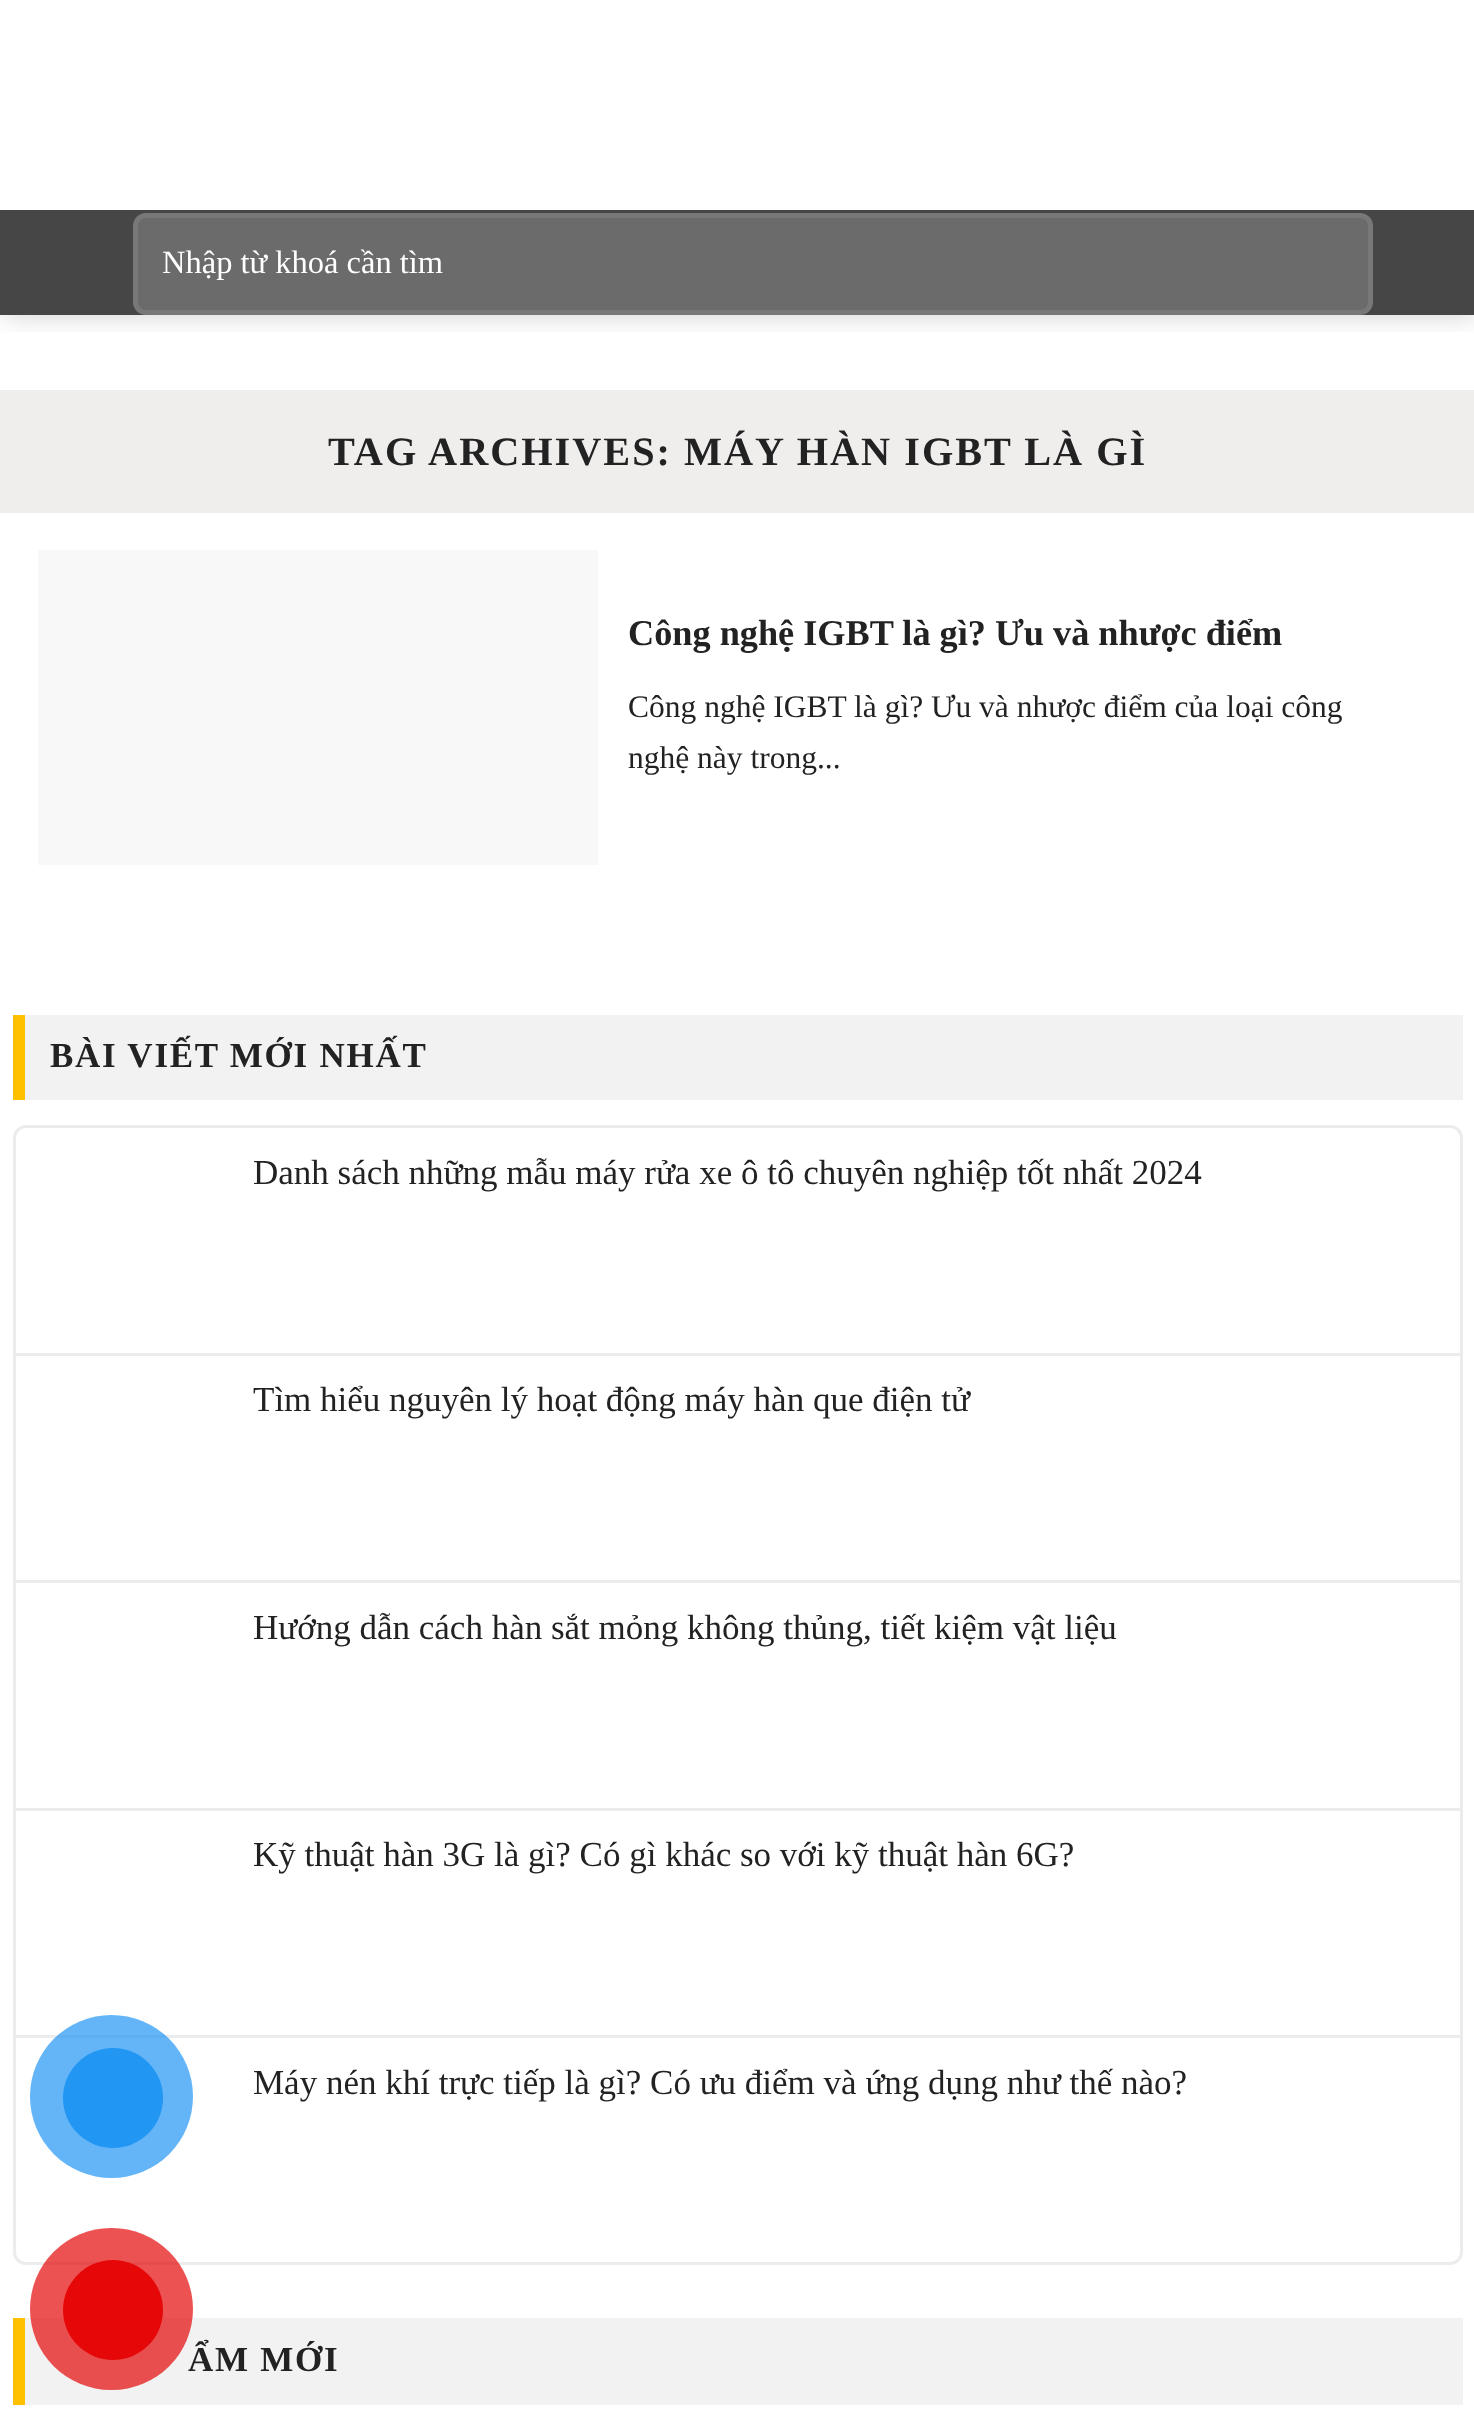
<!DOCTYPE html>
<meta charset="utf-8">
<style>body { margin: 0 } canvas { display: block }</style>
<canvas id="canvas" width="1474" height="2421"></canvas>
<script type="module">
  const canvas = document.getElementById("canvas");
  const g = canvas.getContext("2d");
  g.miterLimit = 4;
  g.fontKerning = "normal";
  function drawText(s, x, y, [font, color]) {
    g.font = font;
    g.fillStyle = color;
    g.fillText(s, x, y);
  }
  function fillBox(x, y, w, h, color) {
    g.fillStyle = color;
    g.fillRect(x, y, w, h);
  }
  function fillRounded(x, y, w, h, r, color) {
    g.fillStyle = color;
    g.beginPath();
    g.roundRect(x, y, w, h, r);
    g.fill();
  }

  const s1 = ["32.5px Liberation Serif", "#FFFFFF"];
  const s2 = ["bold 40.25px Liberation Serif", "#222222"];
  const s3 = ["bold 36.25px Liberation Serif", "#222222"];
  const s4 = ["31.5px Liberation Serif", "#222222"];
  const s5 = ["bold 35px Liberation Serif", "#222222"];
  const s6 = ["35px Liberation Serif", "#222222"];

  fillBox(0, 0, 1474, 2421, "#FFFFFF");
  g.save();
  g.beginPath();
  g.rect(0, 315, 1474, 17);
  g.clip();
  g.fillStyle = "rgba(0, 0, 0, 0.15)";
  g.filter = "blur(12.5px)";
  g.beginPath();
  g.rect(3, -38, 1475, 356);
  g.fill();
  g.filter = "none";
  g.restore();
  fillBox(0, 210, 1474, 105, "#464646");
  fillRounded(133, 213, 1240, 102, 13, "#6B6B6B");
  g.beginPath();
  g.roundRect(135.5, 215.5, 1235, 97, 10.5);
  g.strokeStyle = "rgba(255, 255, 255, 0.09)";
  g.lineWidth = 5;
  g.stroke();
  drawText("Nhập từ khoá cần tìm", 162, 273, s1);
  fillBox(0, 390, 1474, 123, "#F0EDED");
  g.letterSpacing = "2px";
  drawText("TAG ARCHIVES: MÁY HÀN IGBT LÀ GÌ", 328, 465, s2);
  fillBox(38, 550, 560, 315, "#F8F8F8");
  g.letterSpacing = "0px";
  drawText("Công nghệ IGBT là gì? Ưu và nhược điểm", 628, 645, s3);
  drawText("Công nghệ IGBT là gì? Ưu và nhược điểm của loại công", 628, 717, s4);
  drawText("nghệ này trong...", 628, 768, s4);
  fillBox(25, 1015, 1438, 85, "#F2F2F2");
  fillBox(13, 1015, 12, 85, "#FFC000");
  g.letterSpacing = "1.75px";
  drawText("BÀI VIẾT MỚI NHẤT", 50, 1067, s5);
  g.beginPath();
  g.roundRect(14.5, 1126.5, 1447, 1137, 11.5);
  g.strokeStyle = "#ECECEC";
  g.lineWidth = 3;
  g.stroke();
  g.letterSpacing = "0px";
  drawText("Danh sách những mẫu máy rửa xe ô tô chuyên nghiệp tốt nhất 2024", 253, 1184, s6);
  fillBox(15, 1353, 1445, 3, "#ECECEC");
  drawText("Tìm hiểu nguyên lý hoạt động máy hàn que điện tử", 253, 1411, s6);
  fillBox(15, 1580, 1445, 3, "#ECECEC");
  drawText("Hướng dẫn cách hàn sắt mỏng không thủng, tiết kiệm vật liệu", 253, 1639, s6);
  fillBox(15, 1808, 1445, 3, "#ECECEC");
  drawText("Kỹ thuật hàn 3G là gì? Có gì khác so với kỹ thuật hàn 6G?", 253, 1866, s6);
  fillBox(15, 2035, 1445, 3, "#ECECEC");
  drawText("Máy nén khí trực tiếp là gì? Có ưu điểm và ứng dụng như thế nào?", 253, 2094, s6);
  fillBox(25, 2318, 1438, 87, "#F2F2F2");
  fillBox(13, 2318, 12, 87, "#FFC000");
  g.letterSpacing = "1.75px";
  drawText("ẨM MỚI", 188, 2371, s5);
  g.fillStyle = "rgba(33, 150, 243, 0.7)";
  g.beginPath();
  g.arc(111.5, 2096.5, 81.5, 0, Math.PI * 2);
  g.fill();
  g.fillStyle = "#2196F3";
  g.beginPath();
  g.arc(113, 2098, 50, 0, Math.PI * 2);
  g.fill();
  fillRounded(30, 2228, 163, 162, 81, "rgba(230, 8, 8, 0.7)");
  g.fillStyle = "#E60808";
  g.beginPath();
  g.arc(113, 2310, 50, 0, Math.PI * 2);
  g.fill();
</script>
